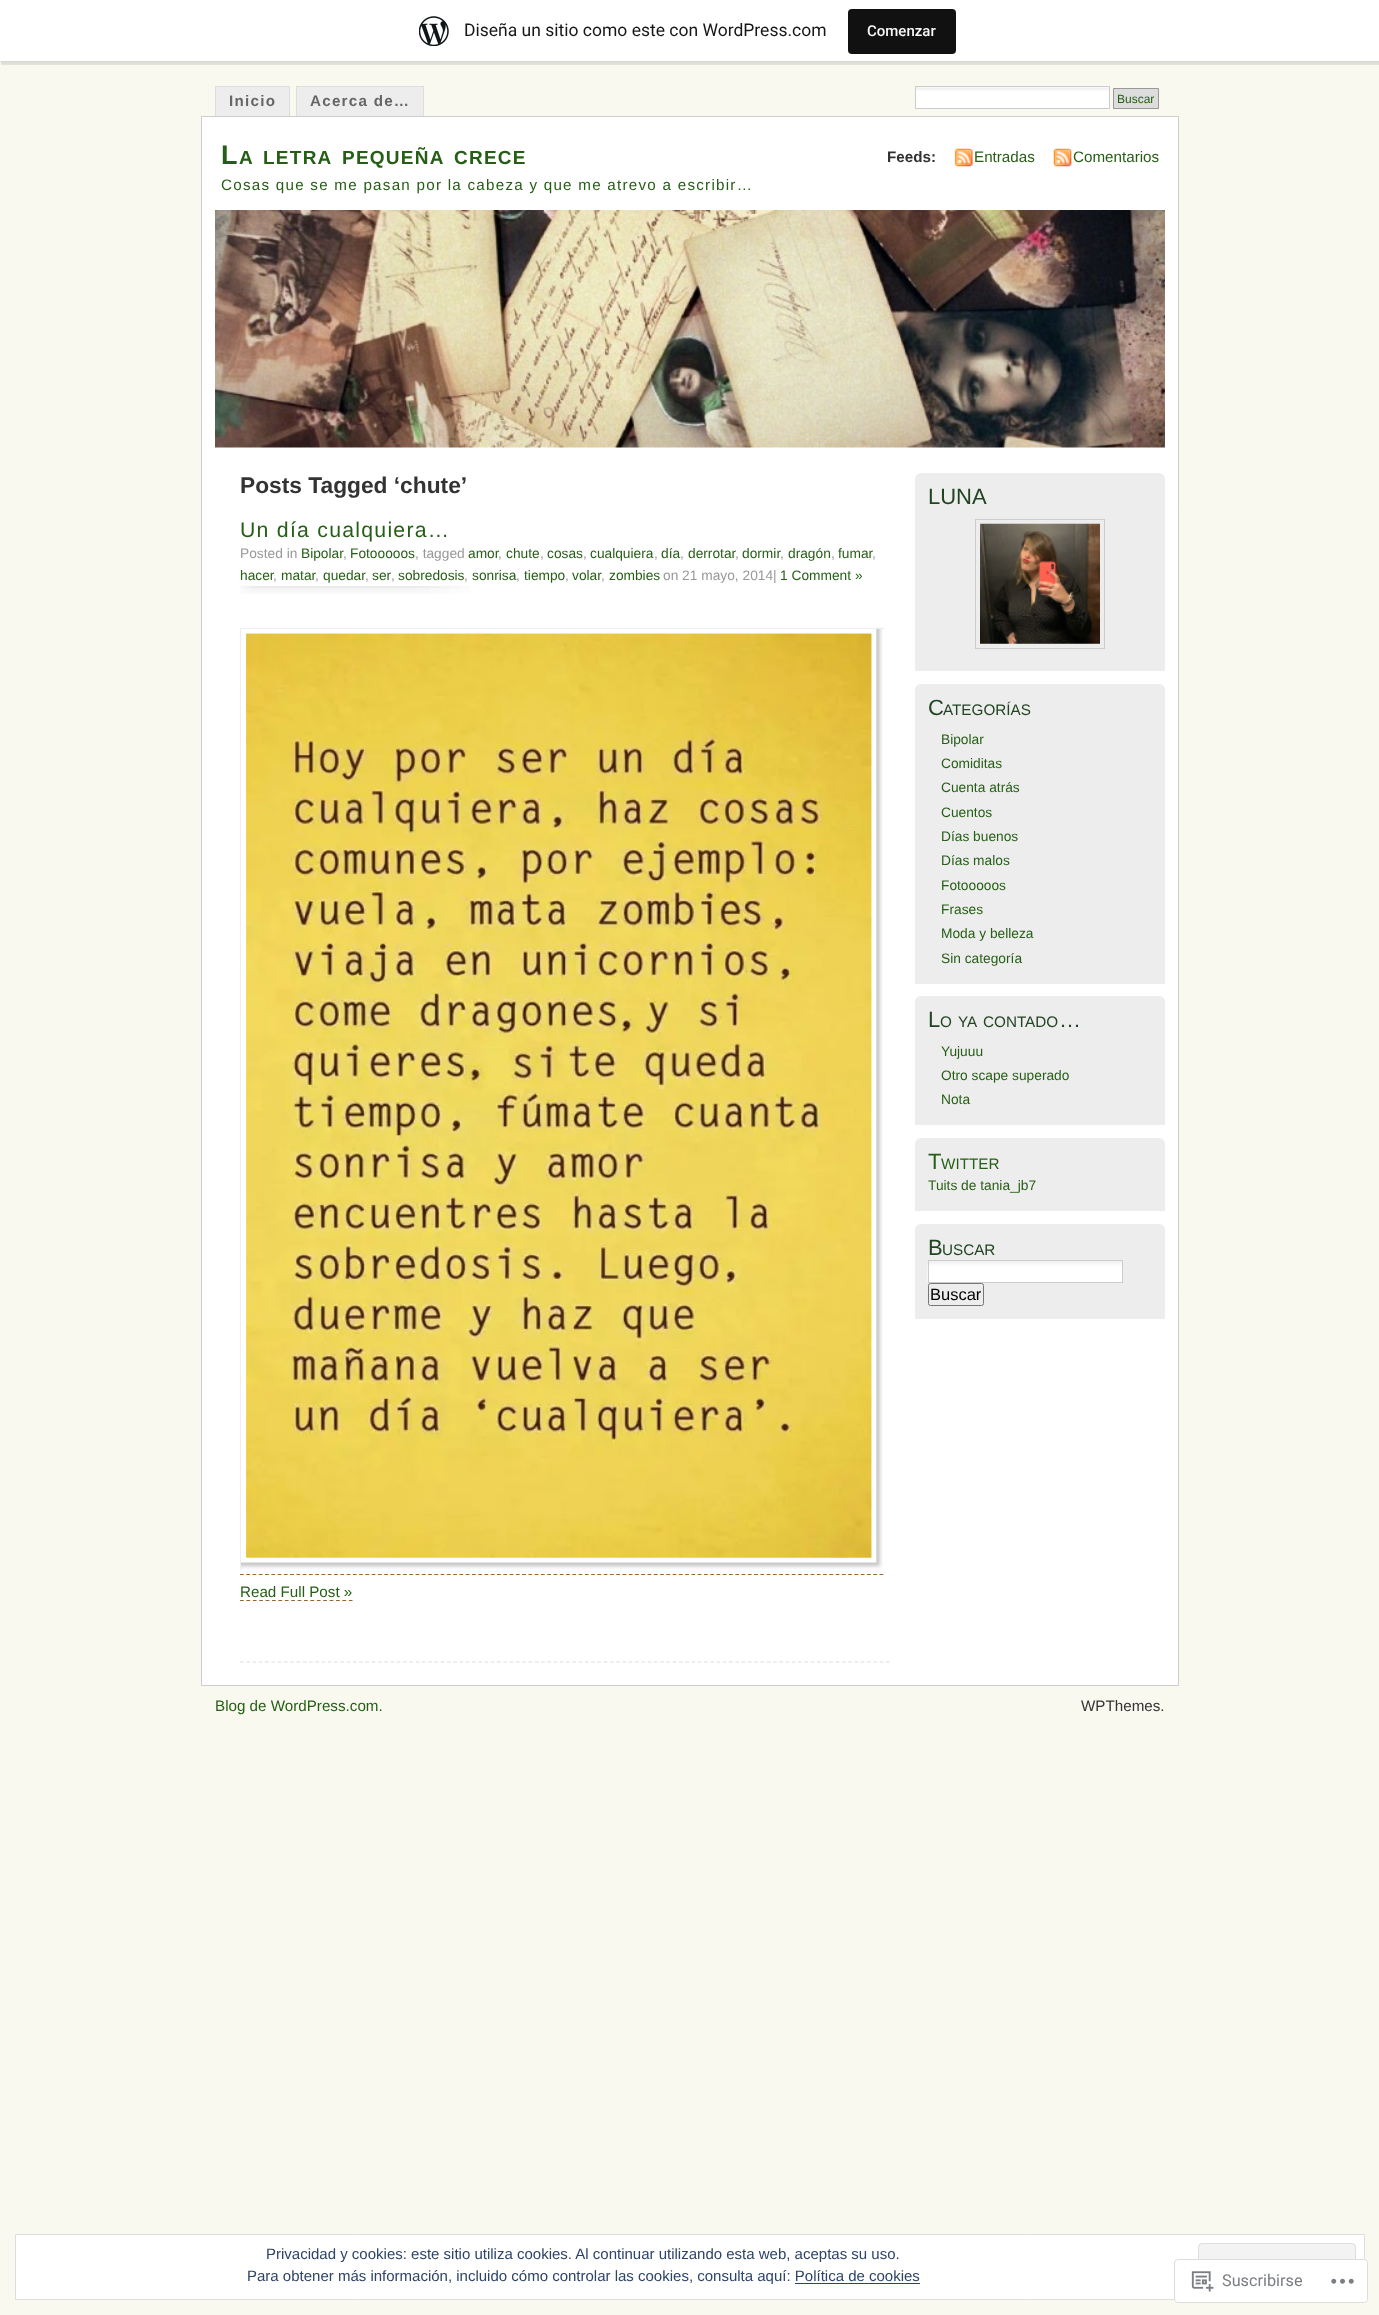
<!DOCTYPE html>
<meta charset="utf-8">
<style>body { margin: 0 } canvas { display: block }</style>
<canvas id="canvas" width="1379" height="2315"></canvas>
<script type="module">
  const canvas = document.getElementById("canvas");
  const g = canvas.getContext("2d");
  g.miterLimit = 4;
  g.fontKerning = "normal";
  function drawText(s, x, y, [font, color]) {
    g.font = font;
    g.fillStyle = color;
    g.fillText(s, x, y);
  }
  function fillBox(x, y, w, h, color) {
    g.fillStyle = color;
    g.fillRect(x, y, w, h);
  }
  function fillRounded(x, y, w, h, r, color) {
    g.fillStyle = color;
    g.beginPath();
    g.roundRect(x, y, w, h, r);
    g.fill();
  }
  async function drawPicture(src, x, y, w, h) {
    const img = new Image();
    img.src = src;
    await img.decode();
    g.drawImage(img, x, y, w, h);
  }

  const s1 = ["17.5px Roboto", "#171717"];
  const s2 = ["500 15px Roboto", "#F6F7F7"];
  const s3 = ["bold 15.2px Liberation Sans", "#666666"];
  const s4 = ["12px Liberation Sans", "#265E15"];
  const s5 = ["bold 27px Liberation Sans", "#265E15"];
  const s6 = ["bold 19px Liberation Sans", "#265E15"];
  const s7 = ["15.2px Liberation Sans", "#265E15"];
  const s8 = ["bold 15.2px Liberation Sans", "#333333"];
  const s9 = ["bold 22.75px Liberation Sans", "#333333"];
  const s10 = ["21.25px Liberation Sans", "#265E15"];
  const s11 = ["13.75px Liberation Sans", "#999999"];
  const s12 = ["13.75px Liberation Sans", "#265E15"];
  const s13 = ["22px Liberation Sans", "#224422"];
  const s14 = ["15.25px Liberation Sans", "#224422"];
  const s15 = ["22px Liberation Sans", "#265E15"];
  const s16 = ["15.25px Liberation Sans", "#265E15"];
  const s17 = ["16.5px Liberation Sans", "#000000"];
  const s18 = ["15.2px Liberation Sans", "#333333"];
  const s19 = ["15px Liberation Sans", "#2E4467"];
  const s20 = ["16.25px Roboto", "#7B7F84"];

  fillBox(0, 0, 1379, 2315, "#F9F9F0");
  g.fillStyle = "rgba(0, 0, 0, 0.05)";
  g.filter = "blur(1px)";
  g.beginPath();
  g.rect(0, 1, 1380, 62);
  g.fill();
  g.filter = "none";
  g.fillStyle = "rgba(0, 0, 0, 0.08)";
  g.beginPath();
  g.moveTo(1, 61);
  g.lineTo(1, 65);
  g.lineTo(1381, 65);
  g.lineTo(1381, 4);
  g.lineTo(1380, 4);
  g.lineTo(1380, 61);
  g.closePath();
  g.fill();
  fillBox(0, 0, 1379, 61, "#FFFFFF");
  await drawPicture("pic1.png", 419, 16, 30, 30);
  drawText("Diseña un sitio como este con WordPress.com", 464, 36, s1);
  fillRounded(848, 9, 108, 45, 4, "#111111");
  drawText("Comenzar", 867, 36, s2);
  fillBox(216, 87, 73, 29, "#EDEDED");
  fillBox(215, 86, 75, 1, "#DEDEDE");
  fillBox(289, 86, 1, 30, "#DEDEDE");
  fillBox(215, 86, 1, 30, "#DEDEDE");
  g.letterSpacing = "1.25px";
  drawText("Inicio", 229, 106, s3);
  fillBox(297, 87, 126, 29, "#EDEDED");
  fillBox(296, 86, 128, 1, "#DEDEDE");
  fillBox(423, 86, 1, 30, "#DEDEDE");
  fillBox(296, 86, 1, 30, "#DEDEDE");
  drawText("Acerca de…", 310, 106, s3);
  fillBox(916, 87, 193, 21, "#FFFFFF");
  await drawPicture("pic2.png", 916, 87, 193, 4);
  g.strokeStyle = "#CCCCCC";
  g.strokeRect(915.5, 86.5, 194, 22);
  g.fillStyle = "#DDDDDD";
  g.beginPath();
  g.rect(1113.5, 88.5, 45, 20);
  g.fill();
  g.strokeStyle = "#999999";
  g.stroke();
  g.letterSpacing = "0px";
  drawText("Buscar", 1117, 103, s4);
  g.fillStyle = "#FFFFFF";
  g.beginPath();
  g.rect(201.5, 116.5, 977, 1569);
  g.fill();
  g.strokeStyle = "#CCCCCC";
  g.stroke();
  g.letterSpacing = "1.25px";
  drawText("L", 221, 164, s5);
  drawText("A", 239, 164, s6);
  drawText("LETRA", 263, 164, s6);
  drawText("PEQUEÑA", 342, 164, s6);
  drawText("CRECE", 454, 164, s6);
  drawText("Cosas que se me pasan por la cabeza y que me atrevo a escribir…", 221, 190, s7);
  g.letterSpacing = "0px";
  drawText("Feeds:", 887, 162, s8);
  await drawPicture("pic3.png", 954, 148, 19, 19);
  drawText("Entradas", 974, 162, s7);
  await drawPicture("pic4.png", 1053, 148, 19, 19);
  drawText("Comentarios", 1073, 162, s7);
  await drawPicture("pic5.png", 215, 210, 950, 238);
  drawText("Posts Tagged ‘chute’", 240, 493, s9);
  g.beginPath();
  g.moveTo(240, 1662);
  g.lineTo(890, 1662);
  g.strokeStyle = "#DDDDDD";
  g.lineWidth = 1.2;
  g.setLineDash([3.75, 2.52]);
  g.stroke();
  g.letterSpacing = "1.25px";
  drawText("Un día cualquiera…", 240, 537, s10);
  await drawPicture("pic6.png", 240, 585, 230, 9);
  g.letterSpacing = "0px";
  drawText("Posted in", 240, 558, s11);
  drawText("Bipolar", 301, 558, s12);
  drawText(",", 343, 558, s11);
  drawText("Fotooooos", 350, 558, s12);
  drawText(", tagged", 415, 558, s11);
  drawText("amor", 468, 558, s12);
  drawText(",", 498, 558, s11);
  drawText("chute", 506, 558, s12);
  drawText(",", 540, 558, s11);
  drawText("cosas", 547, 558, s12);
  drawText(",", 583, 558, s11);
  drawText("cualquiera", 590, 558, s12);
  drawText(",", 654, 558, s11);
  drawText("día", 661, 558, s12);
  drawText(",", 680, 558, s11);
  drawText("derrotar", 688, 558, s12);
  drawText(",", 735, 558, s11);
  drawText("dormir", 742, 558, s12);
  drawText(",", 780, 558, s11);
  drawText("dragón", 788, 558, s12);
  drawText(",", 831, 558, s11);
  drawText("fumar", 838, 558, s12);
  drawText(",", 872, 558, s11);
  drawText("hacer", 240, 580, s12);
  drawText(",", 273, 580, s11);
  drawText("matar", 281, 580, s12);
  drawText(",", 315, 580, s11);
  drawText("quedar", 323, 580, s12);
  drawText(",", 365, 580, s11);
  drawText("ser", 372, 580, s12);
  drawText(",", 391, 580, s11);
  drawText("sobredosis", 398, 580, s12);
  drawText(",", 464, 580, s11);
  drawText("sonrisa", 472, 580, s12);
  drawText(",", 516, 580, s11);
  drawText("tiempo", 524, 580, s12);
  drawText(",", 565, 580, s11);
  drawText("volar", 572, 580, s12);
  drawText(",", 601, 580, s11);
  drawText("zombies", 609, 580, s12);
  drawText("on 21 mayo, 2014|", 663, 580, s11);
  drawText("1 Comment »", 780, 580, s12);
  await drawPicture("pic7.png", 241, 627, 642, 942);
  fillBox(240, 628, 644, 1, "#EEEEEE");
  fillBox(240, 628, 1, 942, "#EEEEEE");
  await drawPicture("pic8.png", 246, 633, 626, 925);
  g.beginPath();
  g.moveTo(240, 1574.5);
  g.lineTo(884, 1574.5);
  g.strokeStyle = "#996633";
  g.stroke();
  drawText("Read Full Post »", 240, 1597, s7);
  g.beginPath();
  g.moveTo(240, 1600.5);
  g.lineTo(352.5, 1600.5);
  g.setLineDash([3.75, 2.65]);
  g.stroke();
  g.fillStyle = "#EDEDED";
  g.beginPath();
  g.roundRect(915, 473, 250, 198, [6, 6, 0, 0]);
  g.fill();
  drawText("LUNA", 928, 504, s13);
  g.strokeStyle = "#CCCCCC";
  g.lineWidth = 1;
  g.setLineDash([]);
  g.strokeRect(975.5, 519.5, 129, 129);
  await drawPicture("pic9.png", 980, 523, 120, 121);
  g.fillStyle = "#EDEDED";
  g.beginPath();
  g.roundRect(915, 684, 250, 300, [6, 6, 0, 0]);
  g.fill();
  drawText("C", 928, 715, s13);
  drawText("ATEGORÍAS", 943, 715, s14);
  drawText("Bipolar", 941, 744, s12);
  drawText("Comiditas", 941, 768, s12);
  drawText("Cuenta atrás", 941, 792, s12);
  drawText("Cuentos", 941, 817, s12);
  drawText("Días buenos", 941, 841, s12);
  drawText("Días malos", 941, 865, s12);
  drawText("Fotooooos", 941, 890, s12);
  drawText("Frases", 941, 914, s12);
  drawText("Moda y belleza", 941, 938, s12);
  drawText("Sin categoría", 941, 963, s12);
  g.fillStyle = "#EDEDED";
  g.beginPath();
  g.roundRect(915, 996, 250, 129, [6, 6, 0, 0]);
  g.fill();
  drawText("L", 928, 1027, s13);
  drawText("O", 940, 1027, s14);
  drawText("YA", 958, 1027, s14);
  drawText("CONTADO", 983, 1027, s14);
  drawText("…", 1059, 1027, s13);
  drawText("Yujuuu", 941, 1056, s12);
  drawText("Otro scape superado", 941, 1080, s12);
  drawText("Nota", 941, 1104, s12);
  g.fillStyle = "#EDEDED";
  g.beginPath();
  g.roundRect(915, 1138, 250, 73, [6, 6, 0, 0]);
  g.fill();
  drawText("T", 928, 1169, s15);
  drawText("WITTER", 941, 1169, s16);
  drawText("Tuits de tania_jb7", 928, 1190, s12);
  g.fillStyle = "#EDEDED";
  g.beginPath();
  g.roundRect(915, 1224, 250, 95, [6, 6, 0, 0]);
  g.fill();
  drawText("B", 928, 1255, s13);
  drawText("USCAR", 942, 1255, s14);
  await drawPicture("pic10.png", 927, 1261, 195, 22);
  g.strokeRect(928.5, 1260.5, 194, 22);
  g.beginPath();
  g.roundRect(928.5, 1283.5, 55, 22, 2);
  g.strokeStyle = "#767676";
  g.stroke();
  drawText("Buscar", 930, 1300, s17);
  drawText("Blog de WordPress.com.", 215, 1711, s7);
  drawText("WPThemes.", 1081, 1711, s18);
  g.fillStyle = "#FFFFFF";
  g.beginPath();
  g.rect(15.5, 2234.5, 1349, 65);
  g.fill();
  g.strokeStyle = "#DEDEDE";
  g.stroke();
  drawText("Privacidad y cookies: este sitio utiliza cookies. Al continuar utilizando esta web, aceptas su uso.", 266, 2259, s19);
  g.fillStyle = "#F3F3F3";
  g.beginPath();
  g.roundRect(1198.5, 2243.5, 157, 47, 3.5);
  g.fill();
  g.stroke();
  drawText("Para obtener más información, incluido cómo controlar las cookies, consulta aquí: Política de cookies", 247, 2281, s19);
  fillBox(795, 2283, 125, 1, "#2E4467");
  fillRounded(1174, 2259, 194, 44, 4, "rgba(255, 255, 255, 0.98)");
  g.beginPath();
  g.roundRect(1174.5, 2259.5, 193, 43, 3.5);
  g.strokeStyle = "rgba(220, 220, 222, 0.98)";
  g.stroke();
  await drawPicture("pic11.png", 1191, 2271, 23, 21);
  drawText("Suscribirse", 1222, 2286, s20);
  await drawPicture("pic12.png", 1331, 2278, 23, 6);
</script>
